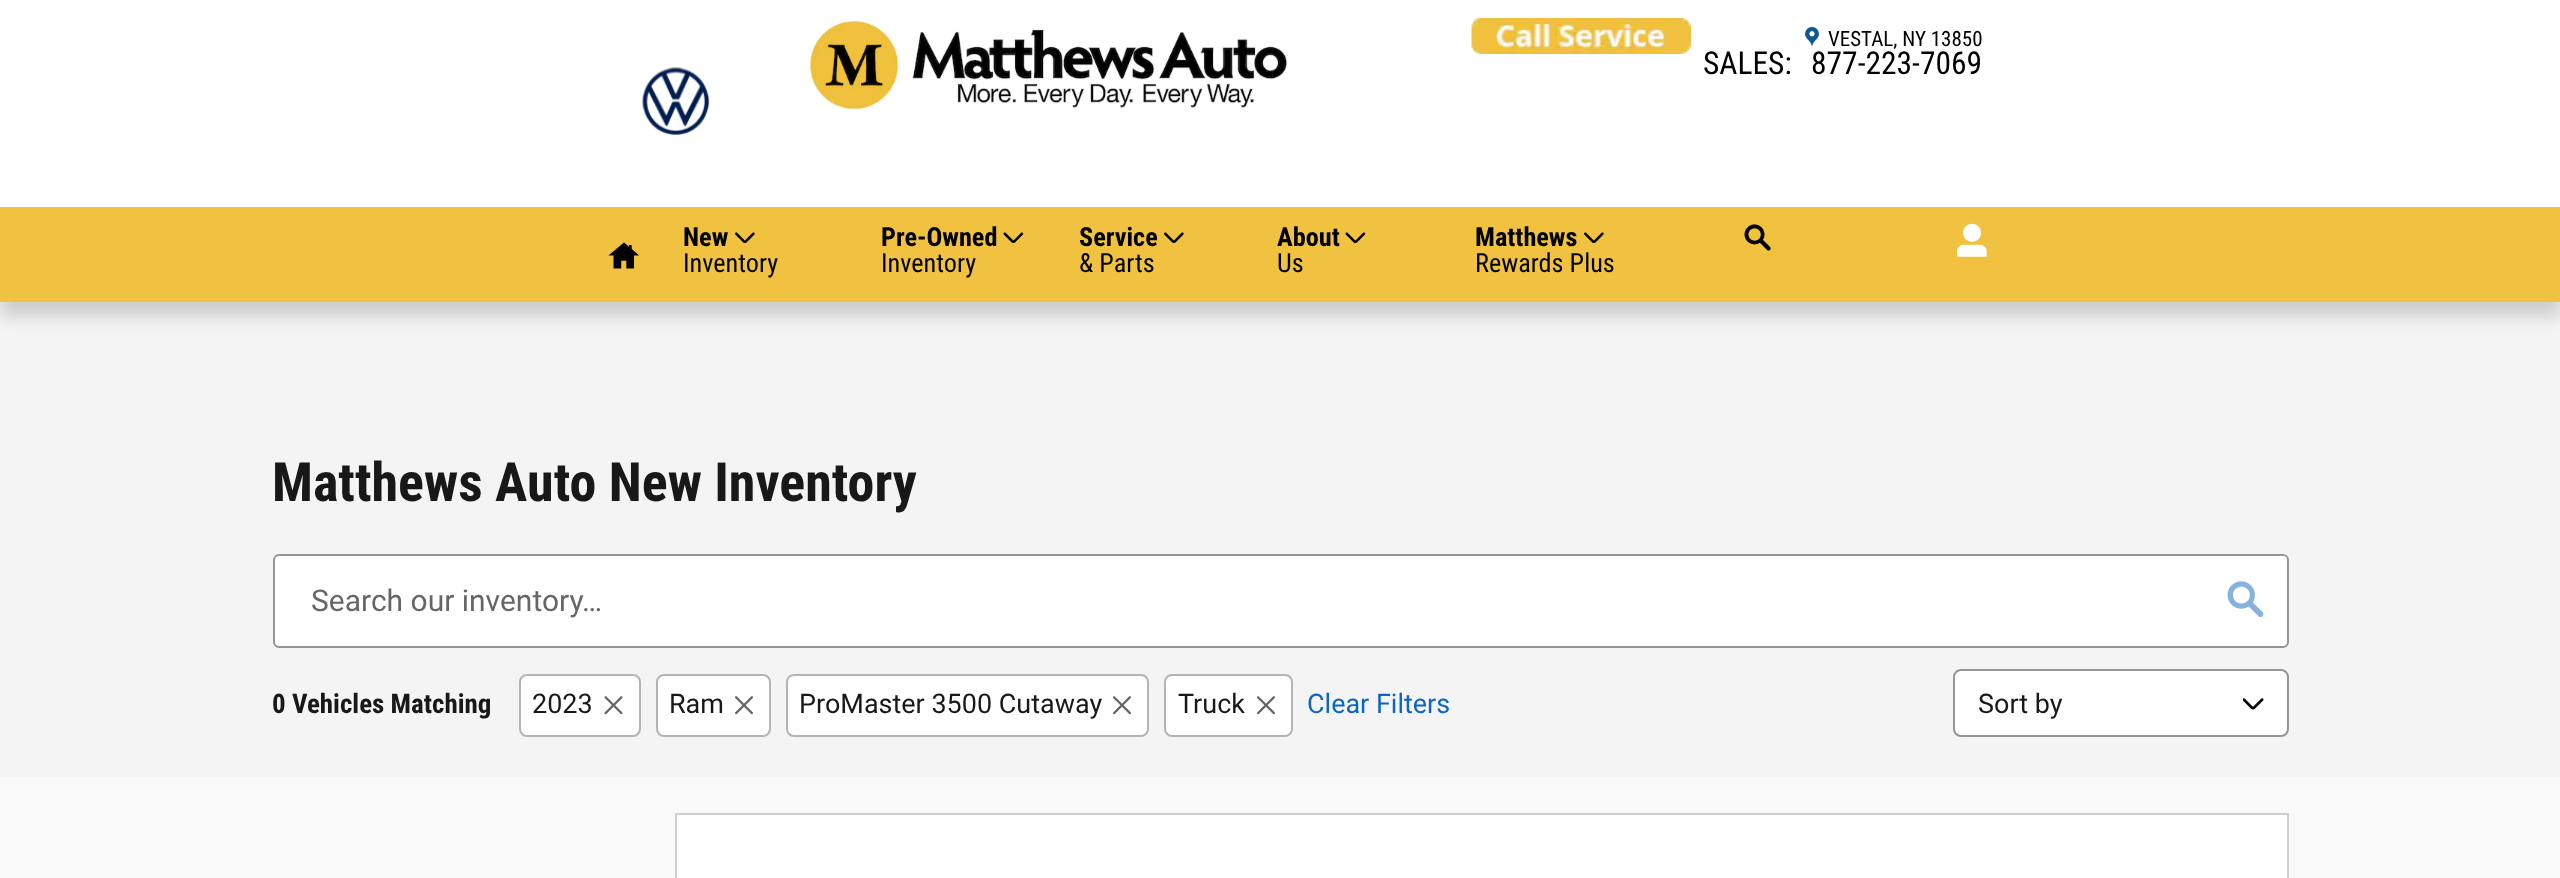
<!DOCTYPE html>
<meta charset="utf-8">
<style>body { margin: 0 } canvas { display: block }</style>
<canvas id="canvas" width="2560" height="878"></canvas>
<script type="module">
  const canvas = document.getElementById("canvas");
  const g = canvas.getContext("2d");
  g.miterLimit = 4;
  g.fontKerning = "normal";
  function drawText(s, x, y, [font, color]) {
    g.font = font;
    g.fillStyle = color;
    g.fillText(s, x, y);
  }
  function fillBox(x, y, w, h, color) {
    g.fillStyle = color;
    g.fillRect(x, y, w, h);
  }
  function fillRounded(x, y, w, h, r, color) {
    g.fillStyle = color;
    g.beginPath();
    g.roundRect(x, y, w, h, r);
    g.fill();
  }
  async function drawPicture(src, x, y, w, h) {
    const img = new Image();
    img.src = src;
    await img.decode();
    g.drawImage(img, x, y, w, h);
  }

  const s1 = ["21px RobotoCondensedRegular", "#000000"];
  const s2 = ["31.5px RobotoCondensedRegular", "#000000"];
  const s3 = ["bold 26.25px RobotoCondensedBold", "#000000"];
  const s4 = ["26.25px RobotoCondensedRegular", "#000000"];
  const s5 = ["bold 54px RobotoCondensedBold", "#181818"];
  const s6 = ["30px Roboto", "#666666"];
  const s7 = ["bold 27px RobotoCondensedBold", "#181818"];
  const s8 = ["27px Roboto", "#181818"];
  const s9 = ["27px Roboto", "#0D65BF"];

  fillBox(0, 0, 2560, 878, "#F9F9FA");
  fillBox(0, 302, 2560, 475, "#F4F4F4");
  g.fillStyle = "rgba(0, 0, 0, 0.15)";
  g.filter = "blur(7.5px)";
  g.beginPath();
  g.rect(0, 222, 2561, 95);
  g.fill();
  g.filter = "none";
  fillBox(0, 0, 2560, 207, "#FFFFFF");
  await drawPicture("pic1.png", 809, 19, 479, 91);
  await drawPicture("pic2.png", 1471, 18, 220, 36);
  await drawPicture("pic3.png", 1805, 27, 14, 20);
  drawText("VESTAL, NY 13850", 1828, 46, s1);
  drawText("SALES:", 1703, 74, s2);
  drawText("877-223-7069", 1811, 74, s2);
  await drawPicture("pic4.png", 642, 67, 68, 68);
  fillBox(0, 207, 2560, 95, "#F1C240");
  await drawPicture("pic5.png", 608, 242, 31, 27);
  drawText("New", 683, 246, s3);
  await drawPicture("pic6.png", 735, 232, 20, 11);
  drawText("Inventory", 683, 272, s4);
  drawText("Pre-Owned", 881, 246, s3);
  await drawPicture("pic7.png", 1003, 232, 21, 11);
  drawText("Inventory", 881, 272, s4);
  drawText("Service", 1079, 246, s3);
  await drawPicture("pic6.png", 1164, 232, 20, 11);
  drawText("& Parts", 1079, 272, s4);
  drawText("About", 1277, 246, s3);
  await drawPicture("pic7.png", 1345, 232, 21, 11);
  drawText("Us", 1277, 272, s4);
  drawText("Matthews", 1475, 246, s3);
  await drawPicture("pic6.png", 1584, 232, 20, 11);
  drawText("Rewards Plus", 1475, 272, s4);
  await drawPicture("pic8.png", 1744, 224, 27, 27);
  await drawPicture("pic9.png", 1957, 223, 30, 34);
  drawText("Matthews Auto New Inventory", 272, 501, s5);
  g.fillStyle = "#FFFFFF";
  g.beginPath();
  g.roundRect(274, 555, 2014, 92, 5);
  g.fill();
  g.strokeStyle = "#949599";
  g.lineWidth = 2;
  g.stroke();
  drawText("Search our inventory…", 311, 611, s6);
  await drawPicture("pic10.png", 2227, 581, 37, 37);
  drawText("0 Vehicles Matching", 272, 713, s7);
  g.fillStyle = "#FFFFFF";
  g.beginPath();
  g.roundRect(520, 675, 120, 61, 7);
  g.fill();
  g.strokeStyle = "#B3B4B7";
  g.stroke();
  drawText("2023", 532, 713, s8);
  await drawPicture("pic11.png", 604, 696, 19, 19);
  g.fillStyle = "#FFFFFF";
  g.beginPath();
  g.roundRect(657, 675, 113, 61, 7);
  g.fill();
  g.stroke();
  drawText("Ram", 669, 713, s8);
  await drawPicture("pic12.png", 735, 696, 18, 19);
  g.fillStyle = "#FFFFFF";
  g.beginPath();
  g.roundRect(787, 675, 361, 61, 7);
  g.fill();
  g.stroke();
  drawText("ProMaster 3500 Cutaway", 799, 713, s8);
  await drawPicture("pic12.png", 1113, 696, 18, 19);
  g.fillStyle = "#FFFFFF";
  g.beginPath();
  g.roundRect(1165, 675, 127, 61, 7);
  g.fill();
  g.stroke();
  drawText("Truck", 1178, 713, s8);
  await drawPicture("pic12.png", 1257, 696, 18, 19);
  drawText("Clear Filters", 1307, 713, s9);
  fillRounded(1953, 669, 336, 68, 8, "#FFFFFF");
  await drawPicture("pic13.png", 2243, 698, 21, 12);
  g.beginPath();
  g.roundRect(1954, 670, 334, 66, 7);
  g.strokeStyle = "#949599";
  g.stroke();
  drawText("Sort by", 1978, 713, s8);
  g.fillStyle = "#FFFFFF";
  g.beginPath();
  g.rect(676, 814, 1612, 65);
  g.fill();
  g.strokeStyle = "#CECFD1";
  g.stroke();
</script>
